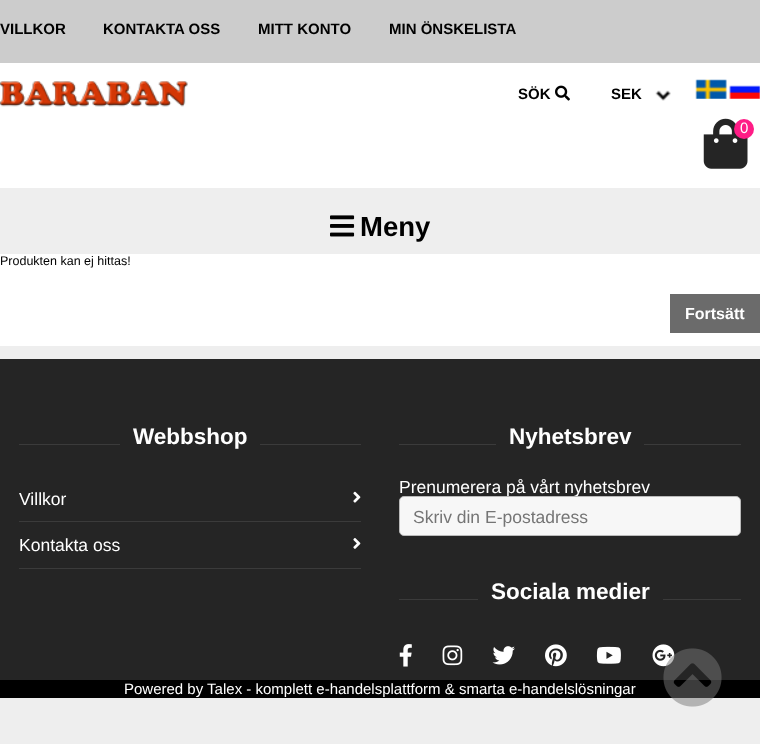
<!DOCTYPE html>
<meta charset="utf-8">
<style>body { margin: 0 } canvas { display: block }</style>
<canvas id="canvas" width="760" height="744"></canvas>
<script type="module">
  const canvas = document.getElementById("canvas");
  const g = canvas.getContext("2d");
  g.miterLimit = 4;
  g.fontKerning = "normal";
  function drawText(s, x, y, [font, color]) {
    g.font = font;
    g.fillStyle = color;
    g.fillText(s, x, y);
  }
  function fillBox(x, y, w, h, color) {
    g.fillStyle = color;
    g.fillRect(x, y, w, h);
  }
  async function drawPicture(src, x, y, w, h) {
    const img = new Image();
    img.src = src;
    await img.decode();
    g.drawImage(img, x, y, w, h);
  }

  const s1 = ["bold 15px Liberation Sans", "#000000"];
  const s2 = ["15px Liberation Sans", "#FFFFFF"];
  const s3 = ["bold 27.5px Liberation Sans", "#000000"];
  const s4 = ["12.5px Liberation Sans", "#000000"];
  const s5 = ["bold 16px Liberation Sans", "#FFFFFF"];
  const s6 = ["bold 22.5px Liberation Sans", "#FFFFFF"];
  const s7 = ["17.5px Liberation Sans", "#FFFFFF"];
  const s8 = ["17.5px Liberation Sans", "#757575"];

  fillBox(0, 0, 760, 744, "#EEEEEE");
  fillBox(0, 0, 760, 63, "#CCCCCC");
  drawText("VILLKOR", 0, 34, s1);
  drawText("KONTAKTA OSS", 103, 34, s1);
  drawText("MITT KONTO", 258, 34, s1);
  drawText("MIN ÖNSKELISTA", 389, 34, s1);
  fillBox(0, 63, 760, 125, "#FFFFFF");
  drawText("SÖK", 518, 99, s1);
  await drawPicture("pic1.png", 555, 85, 15, 16);
  await drawPicture("pic2.png", 655, 90, 16, 11);
  drawText("SEK", 611, 99, s1);
  await drawPicture("pic3.png", 695, 79, 32, 20);
  await drawPicture("pic4.png", 729, 85, 31, 14);
  await drawPicture("pic5.png", 0, 81, 188, 26);
  await drawPicture("pic6.png", 703, 118, 45, 51);
  g.fillStyle = "#FF1C86";
  g.beginPath();
  g.arc(744, 129, 10, 0, Math.PI * 2);
  g.fill();
  drawText("0", 740, 133, s2);
  await drawPicture("pic7.png", 330, 215, 25, 22);
  drawText("Meny", 360, 236, s3);
  fillBox(0, 254, 760, 92, "#FFFFFF");
  drawText("Produkten kan ej hittas!", 0, 265, s4);
  fillBox(670, 294, 90, 39, "#6B6B6B");
  drawText("Fortsätt", 685, 319, s5);
  fillBox(0, 359, 760, 321, "#252525");
  await drawPicture("pic16.png", 652, 644, 23, 23);
  fillBox(0, 680, 760, 18, "#000000");
  await drawPicture("pic8.png", 663, 648, 59, 59);
  fillBox(19, 444, 342, 1, "#3B3B3B");
  fillBox(120, 444, 140, 1, "#252525");
  drawText("Webbshop", 133, 444, s6);
  drawText("Villkor", 19, 505, s7);
  await drawPicture("pic9.png", 353, 491, 8, 12);
  fillBox(19, 521, 342, 1, "#3B3B3B");
  drawText("Kontakta oss", 19, 551, s7);
  await drawPicture("pic10.png", 353, 538, 8, 11);
  fillBox(19, 568, 342, 1, "#3B3B3B");
  fillBox(399, 444, 342, 1, "#3B3B3B");
  fillBox(496, 444, 148, 1, "#252525");
  drawText("Nyhetsbrev", 509, 444, s6);
  drawText("Prenumerera på vårt nyhetsbrev", 399, 493, s7);
  g.fillStyle = "#F7F7F7";
  g.beginPath();
  g.roundRect(399.5, 496.5, 341, 39, 4.5);
  g.fill();
  g.strokeStyle = "#BABABA";
  g.stroke();
  drawText("Skriv din E-postadress", 413, 523, s8);
  fillBox(399, 599, 342, 1, "#3B3B3B");
  fillBox(478, 599, 185, 1, "#252525");
  drawText("Sociala medier", 491, 599, s6);
  await drawPicture("pic11.png", 399, 644, 13, 23);
  await drawPicture("pic12.png", 442, 645, 21, 21);
  await drawPicture("pic13.png", 492, 646, 23, 19);
  await drawPicture("pic14.png", 545, 644, 22, 23);
  await drawPicture("pic15.png", 596, 646, 25, 18);
  drawText("Powered by Talex - komplett e-handelsplattform & smarta e-handelslösningar", 124, 694, s2);
</script>
